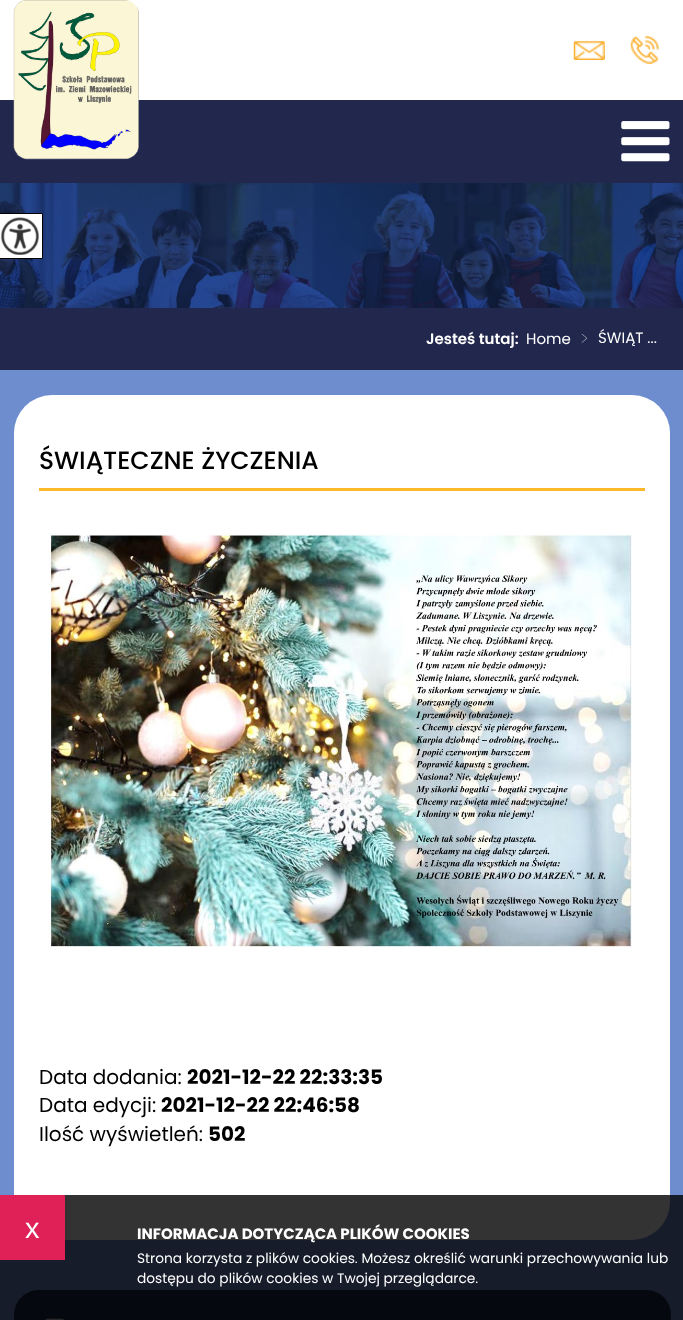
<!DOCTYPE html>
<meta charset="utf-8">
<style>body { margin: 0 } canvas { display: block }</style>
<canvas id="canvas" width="683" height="1320"></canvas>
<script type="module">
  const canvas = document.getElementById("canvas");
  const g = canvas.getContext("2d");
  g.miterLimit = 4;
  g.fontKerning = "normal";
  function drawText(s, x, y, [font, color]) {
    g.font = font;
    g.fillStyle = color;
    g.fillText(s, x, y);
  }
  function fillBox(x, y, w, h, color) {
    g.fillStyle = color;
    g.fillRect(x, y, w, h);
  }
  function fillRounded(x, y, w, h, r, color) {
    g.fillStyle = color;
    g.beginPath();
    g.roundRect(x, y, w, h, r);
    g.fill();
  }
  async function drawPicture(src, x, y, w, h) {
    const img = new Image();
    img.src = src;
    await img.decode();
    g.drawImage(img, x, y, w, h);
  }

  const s1 = ["600 15px Poppins", "#FFFFFF"];
  const s2 = ["15px Poppins", "#FFFFFF"];
  const s3 = ["100 18px Poppins", "#FFFFFF"];
  const s4 = ["500 25px Poppins", "#000000"];
  const s5 = ["20px Poppins", "#000000"];
  const s6 = ["bold 20px Poppins", "#000000"];
  const s7 = ["29px Liberation Sans", "#FFFFFF"];
  const s8 = ["bold 15px Poppins", "#FFFFFF"];
  const s9 = ["13.75px Poppins", "#FFFFFF"];

  fillBox(0, 0, 683, 1320, "#6D8DCF");
  fillBox(0, 0, 683, 100, "#FFFFFF");
  fillBox(0, 100, 683, 83, "#22284D");
  await drawPicture("pic1.png", 13, 0, 126, 179);
  await drawPicture("pic2.png", 573, 41, 32, 19);
  await drawPicture("pic3.png", 630, 36, 29, 28);
  await drawPicture("pic4.png", 621, 121, 49, 41);
  await drawPicture("pic6.png", 0, 183, 683, 125);
  g.fillStyle = "#FFFFFF";
  g.beginPath();
  g.rect(-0.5, 213.5, 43, 45);
  g.fill();
  g.strokeStyle = "#000000";
  g.stroke();
  await drawPicture("pic5.png", 0, 217, 39, 38);
  fillBox(0, 308, 683, 62, "#22284D");
  drawText("Jesteś tutaj:", 426, 344, s1);
  drawText("Home", 526, 344, s2);
  drawText(">", 581, 345, s3);
  drawText("ŚWIĄT ...", 598, 343, s2);
  fillRounded(14, 395, 656, 845, 38, "#FFFFFF");
  fillBox(39, 488, 606, 3, "#FEB829");
  drawText("ŚWIĄTECZNE ŻYCZENIA", 39, 469, s4);
  await drawPicture("pic7.png", 47, 533, 585, 415);
  drawText("Data dodania:", 39, 1084, s5);
  drawText("2021-12-22 22:33:35", 187, 1084, s6);
  drawText("Data edycji:", 39, 1112, s5);
  drawText("2021-12-22 22:46:58", 161, 1112, s6);
  drawText("Ilość wyświetleń:", 39, 1141, s5);
  drawText("502", 208, 1141, s6);
  g.fillStyle = "#22284D";
  g.beginPath();
  g.moveTo(39, 1290);
  g.lineTo(646, 1290);
  g.bezierCurveTo(660, 1290, 671, 1301, 671, 1315);
  g.lineTo(671, 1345);
  g.lineTo(14, 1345);
  g.lineTo(14, 1315);
  g.bezierCurveTo(14, 1301, 25, 1290, 39, 1290);
  g.closePath();
  g.fill();
  await drawPicture("pic8.png", 45, 1318, 19, 2);
  fillBox(0, 1195, 683, 125, "rgba(0, 0, 0, 0.8)");
  fillBox(0, 1195, 65, 65, "#DF2157");
  drawText("x", 25, 1238, s7);
  drawText("INFORMACJA DOTYCZĄCA PLIKÓW COOKIES", 137, 1239, s8);
  drawText("Strona korzysta z plików cookies. Możesz określić warunki przechowywania lub", 137, 1263, s9);
  drawText("dostępu do plików cookies w Twojej przeglądarce.", 137, 1283, s9);
</script>
